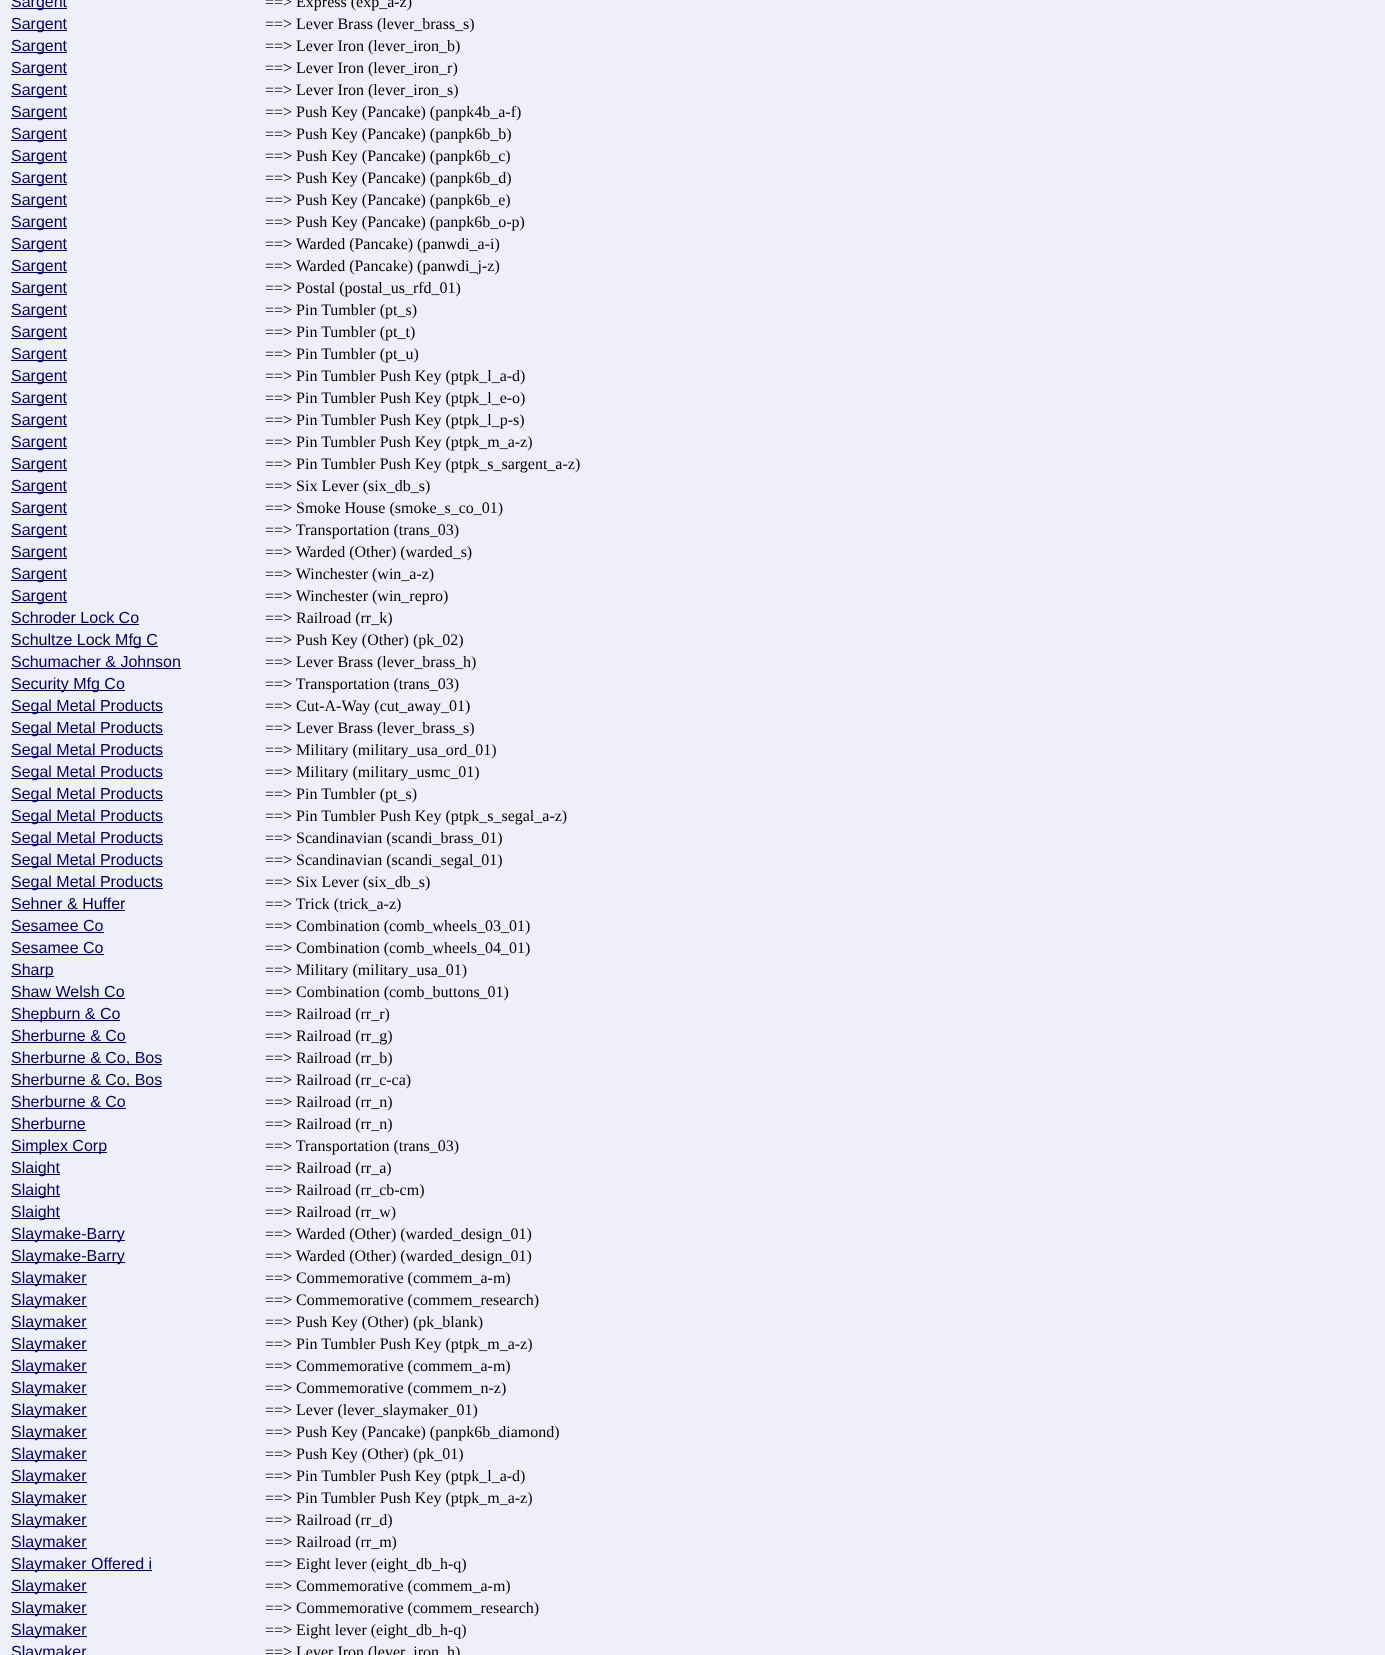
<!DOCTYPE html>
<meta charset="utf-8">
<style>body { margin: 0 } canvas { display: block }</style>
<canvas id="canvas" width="1385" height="1655"></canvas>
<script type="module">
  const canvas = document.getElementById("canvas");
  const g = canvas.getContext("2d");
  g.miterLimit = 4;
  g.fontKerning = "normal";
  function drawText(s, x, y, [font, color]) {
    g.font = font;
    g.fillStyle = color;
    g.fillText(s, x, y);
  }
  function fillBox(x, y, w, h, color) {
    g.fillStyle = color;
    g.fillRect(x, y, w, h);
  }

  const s1 = ["16px Liberation Sans", "#000064"];
  const s2 = ["16px Liberation Serif", "#000000"];

  fillBox(0, 0, 1385, 1655, "#EFEFFA");
  fillBox(11, 8, 56, 1, "#000064");
  drawText("Sargent", 11, 7, s1);
  drawText("==> Express (exp_a-z)", 265, 7, s2);
  fillBox(11, 30, 56, 1, "#000064");
  drawText("Sargent", 11, 29, s1);
  drawText("==> Lever Brass (lever_brass_s)", 265, 29, s2);
  fillBox(11, 52, 56, 1, "#000064");
  drawText("Sargent", 11, 51, s1);
  drawText("==> Lever Iron (lever_iron_b)", 265, 51, s2);
  fillBox(11, 74, 56, 1, "#000064");
  drawText("Sargent", 11, 73, s1);
  drawText("==> Lever Iron (lever_iron_r)", 265, 73, s2);
  fillBox(11, 96, 56, 1, "#000064");
  drawText("Sargent", 11, 95, s1);
  drawText("==> Lever Iron (lever_iron_s)", 265, 95, s2);
  fillBox(11, 118, 56, 1, "#000064");
  drawText("Sargent", 11, 117, s1);
  drawText("==> Push Key (Pancake) (panpk4b_a-f)", 265, 117, s2);
  fillBox(11, 140, 56, 1, "#000064");
  drawText("Sargent", 11, 139, s1);
  drawText("==> Push Key (Pancake) (panpk6b_b)", 265, 139, s2);
  fillBox(11, 162, 56, 1, "#000064");
  drawText("Sargent", 11, 161, s1);
  drawText("==> Push Key (Pancake) (panpk6b_c)", 265, 161, s2);
  fillBox(11, 184, 56, 1, "#000064");
  drawText("Sargent", 11, 183, s1);
  drawText("==> Push Key (Pancake) (panpk6b_d)", 265, 183, s2);
  fillBox(11, 206, 56, 1, "#000064");
  drawText("Sargent", 11, 205, s1);
  drawText("==> Push Key (Pancake) (panpk6b_e)", 265, 205, s2);
  fillBox(11, 228, 56, 1, "#000064");
  drawText("Sargent", 11, 227, s1);
  drawText("==> Push Key (Pancake) (panpk6b_o-p)", 265, 227, s2);
  fillBox(11, 250, 56, 1, "#000064");
  drawText("Sargent", 11, 249, s1);
  drawText("==> Warded (Pancake) (panwdi_a-i)", 265, 249, s2);
  fillBox(11, 272, 56, 1, "#000064");
  drawText("Sargent", 11, 271, s1);
  drawText("==> Warded (Pancake) (panwdi_j-z)", 265, 271, s2);
  fillBox(11, 294, 56, 1, "#000064");
  drawText("Sargent", 11, 293, s1);
  drawText("==> Postal (postal_us_rfd_01)", 265, 293, s2);
  fillBox(11, 316, 56, 1, "#000064");
  drawText("Sargent", 11, 315, s1);
  drawText("==> Pin Tumbler (pt_s)", 265, 315, s2);
  fillBox(11, 338, 56, 1, "#000064");
  drawText("Sargent", 11, 337, s1);
  drawText("==> Pin Tumbler (pt_t)", 265, 337, s2);
  fillBox(11, 360, 56, 1, "#000064");
  drawText("Sargent", 11, 359, s1);
  drawText("==> Pin Tumbler (pt_u)", 265, 359, s2);
  fillBox(11, 382, 56, 1, "#000064");
  drawText("Sargent", 11, 381, s1);
  drawText("==> Pin Tumbler Push Key (ptpk_l_a-d)", 265, 381, s2);
  fillBox(11, 404, 56, 1, "#000064");
  drawText("Sargent", 11, 403, s1);
  drawText("==> Pin Tumbler Push Key (ptpk_l_e-o)", 265, 403, s2);
  fillBox(11, 426, 56, 1, "#000064");
  drawText("Sargent", 11, 425, s1);
  drawText("==> Pin Tumbler Push Key (ptpk_l_p-s)", 265, 425, s2);
  fillBox(11, 448, 56, 1, "#000064");
  drawText("Sargent", 11, 447, s1);
  drawText("==> Pin Tumbler Push Key (ptpk_m_a-z)", 265, 447, s2);
  fillBox(11, 470, 56, 1, "#000064");
  drawText("Sargent", 11, 469, s1);
  drawText("==> Pin Tumbler Push Key (ptpk_s_sargent_a-z)", 265, 469, s2);
  fillBox(11, 492, 56, 1, "#000064");
  drawText("Sargent", 11, 491, s1);
  drawText("==> Six Lever (six_db_s)", 265, 491, s2);
  fillBox(11, 514, 56, 1, "#000064");
  drawText("Sargent", 11, 513, s1);
  drawText("==> Smoke House (smoke_s_co_01)", 265, 513, s2);
  fillBox(11, 536, 56, 1, "#000064");
  drawText("Sargent", 11, 535, s1);
  drawText("==> Transportation (trans_03)", 265, 535, s2);
  fillBox(11, 558, 56, 1, "#000064");
  drawText("Sargent", 11, 557, s1);
  drawText("==> Warded (Other) (warded_s)", 265, 557, s2);
  fillBox(11, 580, 56, 1, "#000064");
  drawText("Sargent", 11, 579, s1);
  drawText("==> Winchester (win_a-z)", 265, 579, s2);
  fillBox(11, 602, 56, 1, "#000064");
  drawText("Sargent", 11, 601, s1);
  drawText("==> Winchester (win_repro)", 265, 601, s2);
  drawText("Schroder Lock Co", 11, 623, s1);
  fillBox(11, 624, 128, 1, "#000064");
  drawText("==> Railroad (rr_k)", 265, 623, s2);
  fillBox(11, 646, 147, 1, "#000064");
  drawText("Schultze Lock Mfg C", 11, 645, s1);
  drawText("==> Push Key (Other) (pk_02)", 265, 645, s2);
  drawText("Schumacher & Johnson", 11, 667, s1);
  fillBox(11, 668, 170, 1, "#000064");
  drawText("==> Lever Brass (lever_brass_h)", 265, 667, s2);
  fillBox(11, 690, 114, 1, "#000064");
  drawText("Security Mfg Co", 11, 689, s1);
  drawText("==> Transportation (trans_03)", 265, 689, s2);
  fillBox(11, 712, 152, 1, "#000064");
  drawText("Segal Metal Products", 11, 711, s1);
  drawText("==> Cut-A-Way (cut_away_01)", 265, 711, s2);
  fillBox(11, 734, 152, 1, "#000064");
  drawText("Segal Metal Products", 11, 733, s1);
  drawText("==> Lever Brass (lever_brass_s)", 265, 733, s2);
  fillBox(11, 756, 152, 1, "#000064");
  drawText("Segal Metal Products", 11, 755, s1);
  drawText("==> Military (military_usa_ord_01)", 265, 755, s2);
  fillBox(11, 778, 152, 1, "#000064");
  drawText("Segal Metal Products", 11, 777, s1);
  drawText("==> Military (military_usmc_01)", 265, 777, s2);
  fillBox(11, 800, 152, 1, "#000064");
  drawText("Segal Metal Products", 11, 799, s1);
  drawText("==> Pin Tumbler (pt_s)", 265, 799, s2);
  fillBox(11, 822, 152, 1, "#000064");
  drawText("Segal Metal Products", 11, 821, s1);
  drawText("==> Pin Tumbler Push Key (ptpk_s_segal_a-z)", 265, 821, s2);
  fillBox(11, 844, 152, 1, "#000064");
  drawText("Segal Metal Products", 11, 843, s1);
  drawText("==> Scandinavian (scandi_brass_01)", 265, 843, s2);
  fillBox(11, 866, 152, 1, "#000064");
  drawText("Segal Metal Products", 11, 865, s1);
  drawText("==> Scandinavian (scandi_segal_01)", 265, 865, s2);
  fillBox(11, 888, 152, 1, "#000064");
  drawText("Segal Metal Products", 11, 887, s1);
  drawText("==> Six Lever (six_db_s)", 265, 887, s2);
  drawText("Sehner & Huffer", 11, 909, s1);
  fillBox(11, 910, 114, 1, "#000064");
  drawText("==> Trick (trick_a-z)", 265, 909, s2);
  drawText("Sesamee Co", 11, 931, s1);
  fillBox(11, 932, 93, 1, "#000064");
  drawText("==> Combination (comb_wheels_03_01)", 265, 931, s2);
  drawText("Sesamee Co", 11, 953, s1);
  fillBox(11, 954, 93, 1, "#000064");
  drawText("==> Combination (comb_wheels_04_01)", 265, 953, s2);
  fillBox(11, 976, 43, 1, "#000064");
  drawText("Sharp", 11, 975, s1);
  drawText("==> Military (military_usa_01)", 265, 975, s2);
  drawText("Shaw Welsh Co", 11, 997, s1);
  fillBox(11, 998, 114, 1, "#000064");
  drawText("==> Combination (comb_buttons_01)", 265, 997, s2);
  fillBox(11, 1020, 109, 1, "#000064");
  drawText("Shepburn & Co", 11, 1019, s1);
  drawText("==> Railroad (rr_r)", 265, 1019, s2);
  drawText("Sherburne & Co", 11, 1041, s1);
  fillBox(11, 1042, 115, 1, "#000064");
  drawText("==> Railroad (rr_g)", 265, 1041, s2);
  fillBox(11, 1064, 151, 1, "#000064");
  drawText("Sherburne & Co, Bos", 11, 1063, s1);
  drawText("==> Railroad (rr_b)", 265, 1063, s2);
  fillBox(11, 1086, 151, 1, "#000064");
  drawText("Sherburne & Co, Bos", 11, 1085, s1);
  drawText("==> Railroad (rr_c-ca)", 265, 1085, s2);
  drawText("Sherburne & Co", 11, 1107, s1);
  fillBox(11, 1108, 115, 1, "#000064");
  drawText("==> Railroad (rr_n)", 265, 1107, s2);
  drawText("Sherburne", 11, 1129, s1);
  fillBox(11, 1130, 75, 1, "#000064");
  drawText("==> Railroad (rr_n)", 265, 1129, s2);
  fillBox(11, 1152, 96, 1, "#000064");
  drawText("Simplex Corp", 11, 1151, s1);
  drawText("==> Transportation (trans_03)", 265, 1151, s2);
  fillBox(11, 1174, 49, 1, "#000064");
  drawText("Slaight", 11, 1173, s1);
  drawText("==> Railroad (rr_a)", 265, 1173, s2);
  fillBox(11, 1196, 49, 1, "#000064");
  drawText("Slaight", 11, 1195, s1);
  drawText("==> Railroad (rr_cb-cm)", 265, 1195, s2);
  fillBox(11, 1218, 49, 1, "#000064");
  drawText("Slaight", 11, 1217, s1);
  drawText("==> Railroad (rr_w)", 265, 1217, s2);
  fillBox(11, 1240, 114, 1, "#000064");
  drawText("Slaymake-Barry", 11, 1239, s1);
  drawText("==> Warded (Other) (warded_design_01)", 265, 1239, s2);
  fillBox(11, 1262, 114, 1, "#000064");
  drawText("Slaymake-Barry", 11, 1261, s1);
  drawText("==> Warded (Other) (warded_design_01)", 265, 1261, s2);
  fillBox(11, 1284, 76, 1, "#000064");
  drawText("Slaymaker", 11, 1283, s1);
  drawText("==> Commemorative (commem_a-m)", 265, 1283, s2);
  fillBox(11, 1306, 76, 1, "#000064");
  drawText("Slaymaker", 11, 1305, s1);
  drawText("==> Commemorative (commem_research)", 265, 1305, s2);
  fillBox(11, 1328, 76, 1, "#000064");
  drawText("Slaymaker", 11, 1327, s1);
  drawText("==> Push Key (Other) (pk_blank)", 265, 1327, s2);
  fillBox(11, 1350, 76, 1, "#000064");
  drawText("Slaymaker", 11, 1349, s1);
  drawText("==> Pin Tumbler Push Key (ptpk_m_a-z)", 265, 1349, s2);
  fillBox(11, 1372, 76, 1, "#000064");
  drawText("Slaymaker", 11, 1371, s1);
  drawText("==> Commemorative (commem_a-m)", 265, 1371, s2);
  fillBox(11, 1394, 76, 1, "#000064");
  drawText("Slaymaker", 11, 1393, s1);
  drawText("==> Commemorative (commem_n-z)", 265, 1393, s2);
  fillBox(11, 1416, 76, 1, "#000064");
  drawText("Slaymaker", 11, 1415, s1);
  drawText("==> Lever (lever_slaymaker_01)", 265, 1415, s2);
  fillBox(11, 1438, 76, 1, "#000064");
  drawText("Slaymaker", 11, 1437, s1);
  drawText("==> Push Key (Pancake) (panpk6b_diamond)", 265, 1437, s2);
  fillBox(11, 1460, 76, 1, "#000064");
  drawText("Slaymaker", 11, 1459, s1);
  drawText("==> Push Key (Other) (pk_01)", 265, 1459, s2);
  fillBox(11, 1482, 76, 1, "#000064");
  drawText("Slaymaker", 11, 1481, s1);
  drawText("==> Pin Tumbler Push Key (ptpk_l_a-d)", 265, 1481, s2);
  fillBox(11, 1504, 76, 1, "#000064");
  drawText("Slaymaker", 11, 1503, s1);
  drawText("==> Pin Tumbler Push Key (ptpk_m_a-z)", 265, 1503, s2);
  fillBox(11, 1526, 76, 1, "#000064");
  drawText("Slaymaker", 11, 1525, s1);
  drawText("==> Railroad (rr_d)", 265, 1525, s2);
  fillBox(11, 1548, 76, 1, "#000064");
  drawText("Slaymaker", 11, 1547, s1);
  drawText("==> Railroad (rr_m)", 265, 1547, s2);
  fillBox(11, 1570, 141, 1, "#000064");
  drawText("Slaymaker Offered i", 11, 1569, s1);
  drawText("==> Eight lever (eight_db_h-q)", 265, 1569, s2);
  fillBox(11, 1592, 76, 1, "#000064");
  drawText("Slaymaker", 11, 1591, s1);
  drawText("==> Commemorative (commem_a-m)", 265, 1591, s2);
  fillBox(11, 1614, 76, 1, "#000064");
  drawText("Slaymaker", 11, 1613, s1);
  drawText("==> Commemorative (commem_research)", 265, 1613, s2);
  fillBox(11, 1636, 76, 1, "#000064");
  drawText("Slaymaker", 11, 1635, s1);
  drawText("==> Eight lever (eight_db_h-q)", 265, 1635, s2);
  drawText("Slaymaker", 11, 1657, s1);
  drawText("==> Lever Iron (lever_iron_h)", 265, 1657, s2);
</script>
